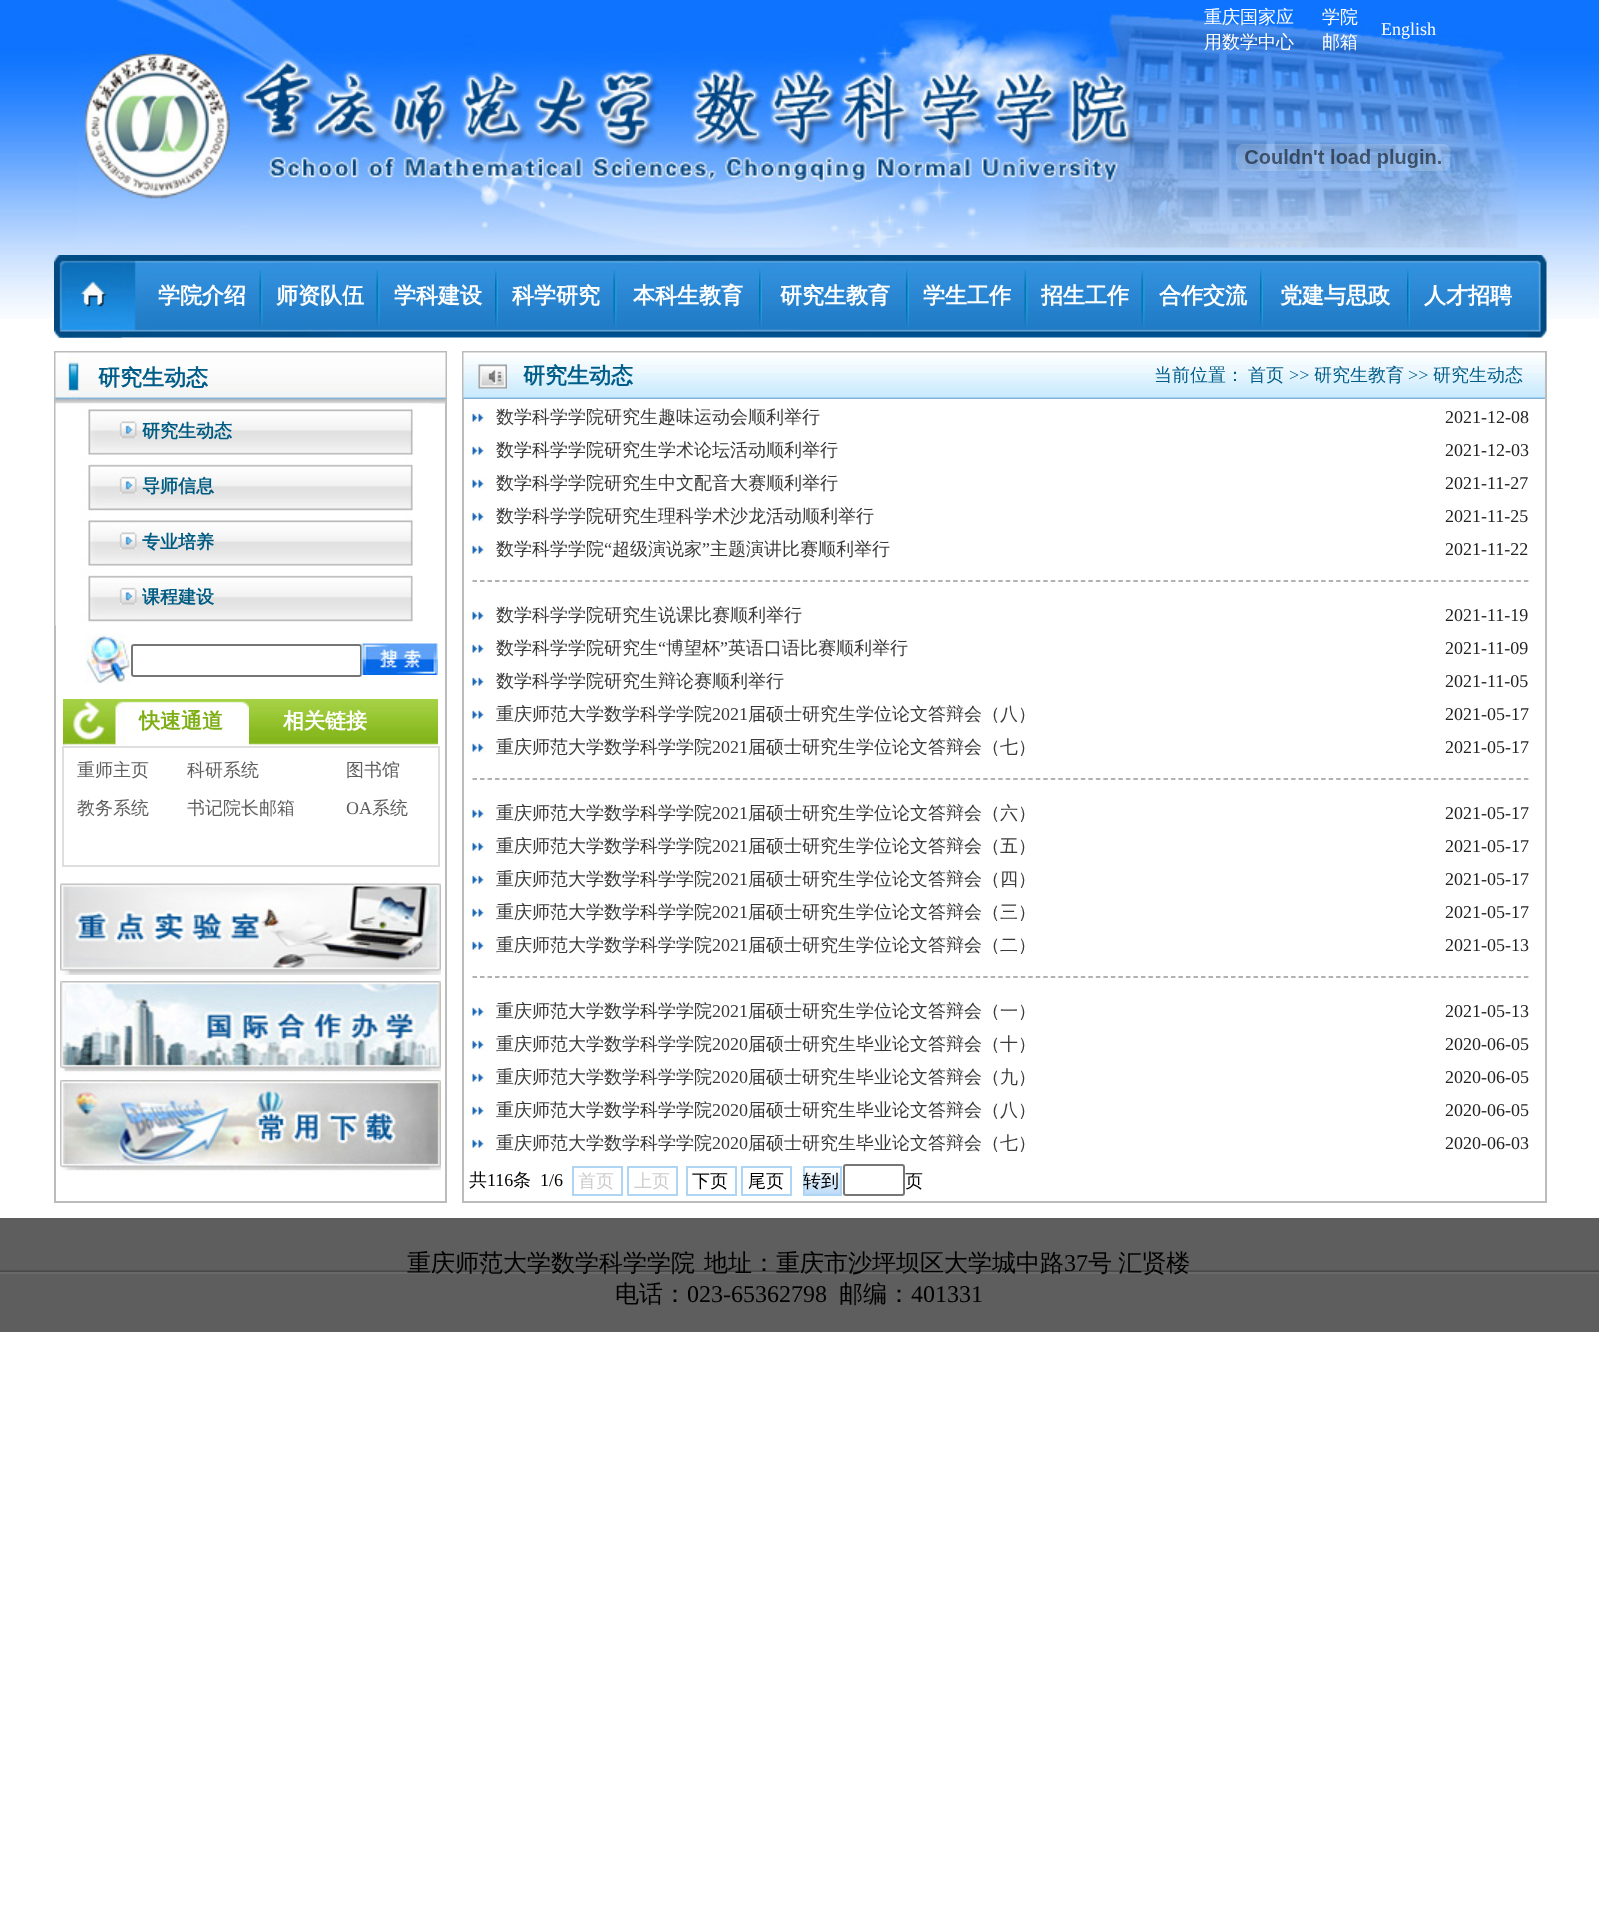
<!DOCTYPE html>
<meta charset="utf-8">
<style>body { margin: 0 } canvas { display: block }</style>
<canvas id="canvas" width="1599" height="1929"></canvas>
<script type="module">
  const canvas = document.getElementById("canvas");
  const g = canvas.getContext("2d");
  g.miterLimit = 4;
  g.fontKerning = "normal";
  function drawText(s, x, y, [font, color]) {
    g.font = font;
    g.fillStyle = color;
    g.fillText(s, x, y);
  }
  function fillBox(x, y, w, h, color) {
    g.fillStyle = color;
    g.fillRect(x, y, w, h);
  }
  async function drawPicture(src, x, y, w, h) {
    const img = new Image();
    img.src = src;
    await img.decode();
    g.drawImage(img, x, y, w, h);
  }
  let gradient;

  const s1 = ["500 18px WenQuanYi Zen Hei", "#FFFFFF"];
  const s2 = ["18px Liberation Serif", "#FFFFFF"];
  const s3 = ["bold 22px WenQuanYi Zen Hei", "#FFFFFF"];
  const s4 = ["bold 22px WenQuanYi Zen Hei", "#005D89"];
  const s5 = ["bold 18px WenQuanYi Zen Hei", "#005C83"];
  const s6 = ["bold 21px WenQuanYi Zen Hei", "#7EAF15"];
  const s7 = ["bold 21px WenQuanYi Zen Hei", "#FFFFFF"];
  const s8 = ["500 18px WenQuanYi Zen Hei", "#5F5F5F"];
  const s9 = ["18px Liberation Serif", "#5F5F5F"];
  const s10 = ["500 18px WenQuanYi Zen Hei", "#005D89"];
  const s11 = ["18px Liberation Serif", "#005D89"];
  const s12 = ["500 18px WenQuanYi Zen Hei", "#3A3A3A"];
  const s13 = ["18px Liberation Serif", "#222222"];
  const s14 = ["18px Liberation Serif", "#3A3A3A"];
  const s15 = ["500 18px WenQuanYi Zen Hei", "#000000"];
  const s16 = ["18px Liberation Serif", "#000000"];
  const s17 = ["500 18px WenQuanYi Zen Hei", "#CCCCCC"];
  const s18 = ["500 24px WenQuanYi Zen Hei", "#000000"];
  const s19 = ["24px Liberation Serif", "#000000"];

  fillBox(0, 0, 1599, 1929, "#FFFFFF");
  await drawPicture("pic1.png", 0, 0, 1599, 319);
  await drawPicture("pic2.png", 78, 0, 1440, 248);
  drawText("重庆国家应", 1204, 23, s1);
  drawText("用数学中心", 1204, 48, s1);
  drawText("学院", 1322, 23, s1);
  drawText("邮箱", 1322, 48, s1);
  drawText("English", 1381, 35, s2);
  await drawPicture("pic3.png", 1236, 144, 215, 27);
  await drawPicture("pic4.png", 54, 255, 1493, 83);
  await drawPicture("pic5.png", 55, 255, 67, 83);
  drawText("学院介绍", 158, 303, s3);
  await drawPicture("pic6.png", 259, 269, 4, 58);
  drawText("师资队伍", 276, 303, s3);
  await drawPicture("pic7.png", 376, 269, 4, 58);
  drawText("学科建设", 394, 303, s3);
  await drawPicture("pic8.png", 495, 269, 3, 58);
  drawText("科学研究", 512, 303, s3);
  await drawPicture("pic7.png", 613, 269, 4, 58);
  drawText("本科生教育", 633, 303, s3);
  await drawPicture("pic8.png", 759, 269, 3, 58);
  drawText("研究生教育", 780, 303, s3);
  await drawPicture("pic9.png", 906, 269, 3, 58);
  drawText("学生工作", 923, 303, s3);
  await drawPicture("pic7.png", 1024, 269, 4, 58);
  drawText("招生工作", 1041, 303, s3);
  await drawPicture("pic7.png", 1141, 269, 4, 58);
  drawText("合作交流", 1159, 303, s3);
  await drawPicture("pic8.png", 1260, 269, 3, 58);
  drawText("党建与思政", 1280, 303, s3);
  await drawPicture("pic9.png", 1407, 269, 3, 58);
  drawText("人才招聘", 1424, 303, s3);
  g.strokeStyle = "#BBBBBB";
  g.lineWidth = 2;
  g.strokeRect(55, 352, 391, 850);
  await drawPicture("pic10.png", 55, 352, 391, 52);
  drawText("研究生动态", 98, 385, s4);
  await drawPicture("pic11.png", 55, 403, 376, 56);
  drawText("研究生动态", 142, 437, s5);
  await drawPicture("pic12.png", 55, 459, 358, 56);
  drawText("导师信息", 142, 492, s5);
  await drawPicture("pic13.png", 55, 514, 358, 56);
  drawText("专业培养", 142, 548, s5);
  await drawPicture("pic12.png", 55, 570, 358, 56);
  drawText("课程建设", 142, 603, s5);
  await drawPicture("pic14.png", 85, 634, 46, 50);
  g.beginPath();
  g.roundRect(132, 645, 229, 31, 2);
  g.strokeStyle = "#767676";
  g.stroke();
  await drawPicture("pic15.png", 361, 643, 77, 32);
  await drawPicture("pic16.png", 63, 699, 375, 47);
  await drawPicture("pic17.png", 63, 699, 49, 47);
  await drawPicture("pic18.png", 114, 699, 135, 47);
  drawText("快速通道", 139, 728, s6);
  drawText("相关链接", 283, 728, s7);
  g.strokeStyle = "#DFDFDF";
  g.strokeRect(63, 747, 376, 119);
  drawText("重师主页", 77, 776, s8);
  drawText("科研系统", 187, 776, s8);
  drawText("图书馆", 346, 776, s8);
  drawText("教务系统", 77, 814, s8);
  drawText("书记院长邮箱", 187, 814, s8);
  drawText("OA", 346, 814, s9);
  drawText("系统", 372, 814, s8);
  await drawPicture("pic19.png", 60, 882, 381, 93);
  await drawPicture("pic20.png", 60, 981, 381, 93);
  await drawPicture("pic21.png", 60, 1080, 381, 93);
  g.strokeStyle = "#BBBBBB";
  g.strokeRect(463, 352, 1083, 850);
  await drawPicture("pic22.png", 463, 352, 1082, 47);
  await drawPicture("pic23.png", 478, 364, 29, 25);
  drawText("研究生动态", 523, 383, s4);
  drawText("当前位置：", 1154, 381, s10);
  drawText("首页", 1248, 381, s10);
  drawText(">>", 1289, 381, s11);
  drawText("研究生教育", 1314, 381, s10);
  drawText(">>", 1408, 381, s11);
  drawText("研究生动态", 1433, 381, s10);
  await drawPicture("pic24.png", 468, 413, 18, 11);
  drawText("数学科学学院研究生趣味运动会顺利举行", 496, 423, s12);
  drawText("2021-12-08", 1445, 423, s13);
  await drawPicture("pic24.png", 468, 446, 18, 11);
  drawText("数学科学学院研究生学术论坛活动顺利举行", 496, 456, s12);
  drawText("2021-12-03", 1445, 456, s13);
  await drawPicture("pic24.png", 468, 479, 18, 11);
  drawText("数学科学学院研究生中文配音大赛顺利举行", 496, 489, s12);
  drawText("2021-11-27", 1445, 489, s13);
  await drawPicture("pic24.png", 468, 512, 18, 11);
  drawText("数学科学学院研究生理科学术沙龙活动顺利举行", 496, 522, s12);
  drawText("2021-11-25", 1445, 522, s13);
  await drawPicture("pic24.png", 468, 545, 18, 11);
  drawText("数学科学学院", 496, 555, s12);
  drawText("“", 604, 555, s14);
  drawText("超级演说家", 612, 555, s12);
  drawText("”", 702, 555, s14);
  drawText("主题演讲比赛顺利举行", 710, 555, s12);
  drawText("2021-11-22", 1445, 555, s13);
  g.beginPath();
  g.moveTo(472.5, 581);
  g.lineTo(1528.5, 581);
  g.strokeStyle = "#999999";
  g.lineWidth = 1.5;
  g.setLineDash([4.5, 3.01]);
  g.stroke();
  await drawPicture("pic24.png", 468, 611, 18, 11);
  drawText("数学科学学院研究生说课比赛顺利举行", 496, 621, s12);
  drawText("2021-11-19", 1445, 621, s13);
  await drawPicture("pic24.png", 468, 644, 18, 11);
  drawText("数学科学学院研究生", 496, 654, s12);
  drawText("“", 658, 654, s14);
  drawText("博望杯", 666, 654, s12);
  drawText("”", 720, 654, s14);
  drawText("英语口语比赛顺利举行", 728, 654, s12);
  drawText("2021-11-09", 1445, 654, s13);
  await drawPicture("pic24.png", 468, 677, 18, 11);
  drawText("数学科学学院研究生辩论赛顺利举行", 496, 687, s12);
  drawText("2021-11-05", 1445, 687, s13);
  await drawPicture("pic24.png", 468, 710, 18, 11);
  drawText("重庆师范大学数学科学学院", 496, 720, s12);
  drawText("2021", 712, 720, s14);
  drawText("届硕士研究生学位论文答辩会（八）", 748, 720, s12);
  drawText("2021-05-17", 1445, 720, s13);
  await drawPicture("pic24.png", 468, 743, 18, 11);
  drawText("重庆师范大学数学科学学院", 496, 753, s12);
  drawText("2021", 712, 753, s14);
  drawText("届硕士研究生学位论文答辩会（七）", 748, 753, s12);
  drawText("2021-05-17", 1445, 753, s13);
  g.beginPath();
  g.moveTo(472.5, 779);
  g.lineTo(1528.5, 779);
  g.stroke();
  await drawPicture("pic24.png", 468, 809, 18, 11);
  drawText("重庆师范大学数学科学学院", 496, 819, s12);
  drawText("2021", 712, 819, s14);
  drawText("届硕士研究生学位论文答辩会（六）", 748, 819, s12);
  drawText("2021-05-17", 1445, 819, s13);
  await drawPicture("pic24.png", 468, 842, 18, 11);
  drawText("重庆师范大学数学科学学院", 496, 852, s12);
  drawText("2021", 712, 852, s14);
  drawText("届硕士研究生学位论文答辩会（五）", 748, 852, s12);
  drawText("2021-05-17", 1445, 852, s13);
  await drawPicture("pic24.png", 468, 875, 18, 11);
  drawText("重庆师范大学数学科学学院", 496, 885, s12);
  drawText("2021", 712, 885, s14);
  drawText("届硕士研究生学位论文答辩会（四）", 748, 885, s12);
  drawText("2021-05-17", 1445, 885, s13);
  await drawPicture("pic24.png", 468, 908, 18, 11);
  drawText("重庆师范大学数学科学学院", 496, 918, s12);
  drawText("2021", 712, 918, s14);
  drawText("届硕士研究生学位论文答辩会（三）", 748, 918, s12);
  drawText("2021-05-17", 1445, 918, s13);
  await drawPicture("pic24.png", 468, 941, 18, 11);
  drawText("重庆师范大学数学科学学院", 496, 951, s12);
  drawText("2021", 712, 951, s14);
  drawText("届硕士研究生学位论文答辩会（二）", 748, 951, s12);
  drawText("2021-05-13", 1445, 951, s13);
  g.beginPath();
  g.moveTo(472.5, 977);
  g.lineTo(1528.5, 977);
  g.stroke();
  await drawPicture("pic24.png", 468, 1007, 18, 11);
  drawText("重庆师范大学数学科学学院", 496, 1017, s12);
  drawText("2021", 712, 1017, s14);
  drawText("届硕士研究生学位论文答辩会（一）", 748, 1017, s12);
  drawText("2021-05-13", 1445, 1017, s13);
  await drawPicture("pic24.png", 468, 1040, 18, 11);
  drawText("重庆师范大学数学科学学院", 496, 1050, s12);
  drawText("2020", 712, 1050, s14);
  drawText("届硕士研究生毕业论文答辩会（十）", 748, 1050, s12);
  drawText("2020-06-05", 1445, 1050, s13);
  await drawPicture("pic24.png", 468, 1073, 18, 11);
  drawText("重庆师范大学数学科学学院", 496, 1083, s12);
  drawText("2020", 712, 1083, s14);
  drawText("届硕士研究生毕业论文答辩会（九）", 748, 1083, s12);
  drawText("2020-06-05", 1445, 1083, s13);
  await drawPicture("pic24.png", 468, 1106, 18, 11);
  drawText("重庆师范大学数学科学学院", 496, 1116, s12);
  drawText("2020", 712, 1116, s14);
  drawText("届硕士研究生毕业论文答辩会（八）", 748, 1116, s12);
  drawText("2020-06-05", 1445, 1116, s13);
  await drawPicture("pic24.png", 468, 1139, 18, 11);
  drawText("重庆师范大学数学科学学院", 496, 1149, s12);
  drawText("2020", 712, 1149, s14);
  drawText("届硕士研究生毕业论文答辩会（七）", 748, 1149, s12);
  drawText("2020-06-03", 1445, 1149, s13);
  drawText("共", 469, 1186, s15);
  drawText("116", 487, 1186, s16);
  drawText("条", 513, 1186, s15);
  drawText("1/6", 540, 1186, s16);
  g.strokeStyle = "#AFD5F5";
  g.lineWidth = 2;
  g.setLineDash([]);
  g.strokeRect(573, 1167, 49, 28);
  drawText("首页", 578, 1187, s17);
  g.strokeRect(628, 1167, 49, 28);
  drawText("上页", 634, 1187, s17);
  g.strokeRect(687, 1167, 49, 28);
  drawText("下页", 692, 1187, s15);
  g.strokeRect(742, 1167, 49, 28);
  drawText("尾页", 748, 1187, s15);
  gradient = g.createLinearGradient(804, 1167, 804, 1194);
  gradient.addColorStop(0, "#FFFFFF");
  gradient.addColorStop(1, "#BDDBF7");
  g.fillStyle = gradient;
  g.fillRect(805, 1168, 35, 26);
  g.strokeRect(804, 1167, 37, 28);
  drawText("转到", 803, 1187, s15);
  g.beginPath();
  g.roundRect(844, 1165, 60, 30, 2);
  g.strokeStyle = "#767676";
  g.stroke();
  drawText("页", 905, 1187, s15);
  await drawPicture("pic25.png", 0, 1218, 1599, 114);
  drawText("重庆师范大学数学科学学院", 407, 1271, s18);
  drawText("地址：重庆市沙坪坝区大学城中路", 704, 1271, s18);
  drawText("37", 1064, 1271, s19);
  g.wordSpacing = "-1px";
  drawText("号 汇贤楼", 1088, 1271, s18);
  g.wordSpacing = "0px";
  drawText("电话：", 615, 1302, s18);
  drawText("023-65362798", 687, 1302, s19);
  drawText("邮编：", 839, 1302, s18);
  drawText("401331", 911, 1302, s19);
</script>
